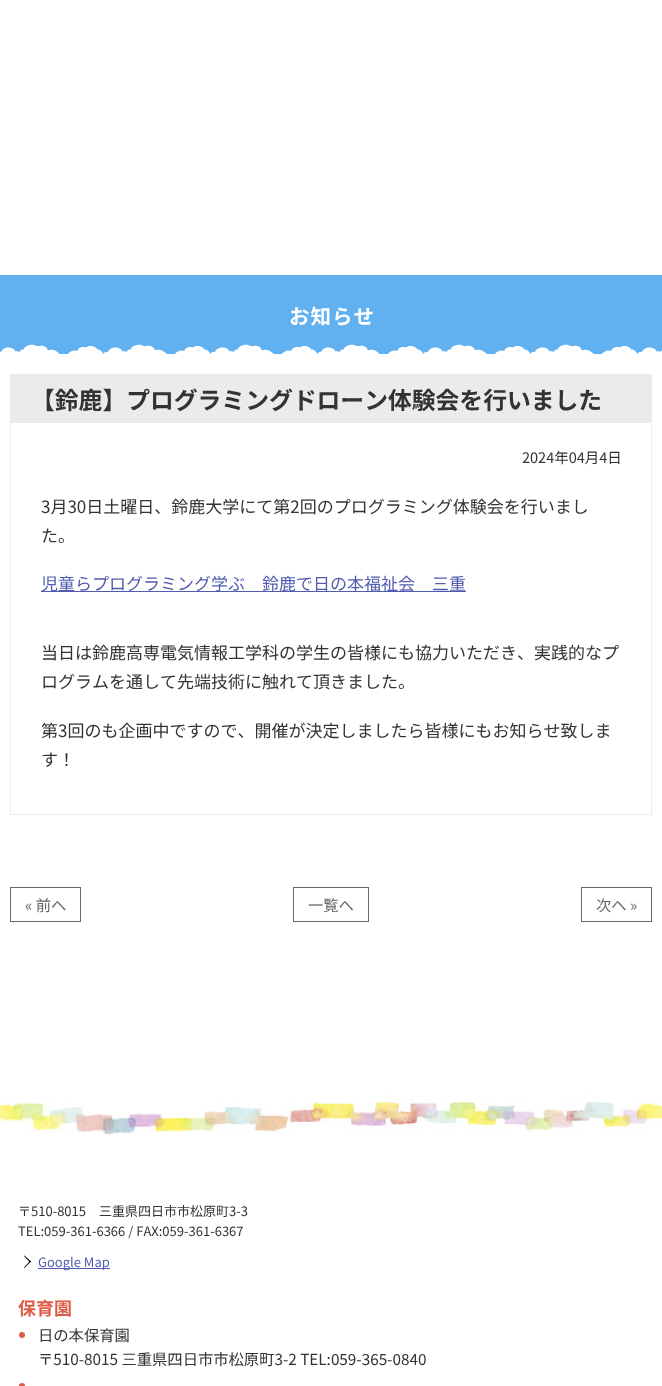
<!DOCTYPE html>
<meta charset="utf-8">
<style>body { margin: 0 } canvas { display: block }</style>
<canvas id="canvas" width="662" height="1386"></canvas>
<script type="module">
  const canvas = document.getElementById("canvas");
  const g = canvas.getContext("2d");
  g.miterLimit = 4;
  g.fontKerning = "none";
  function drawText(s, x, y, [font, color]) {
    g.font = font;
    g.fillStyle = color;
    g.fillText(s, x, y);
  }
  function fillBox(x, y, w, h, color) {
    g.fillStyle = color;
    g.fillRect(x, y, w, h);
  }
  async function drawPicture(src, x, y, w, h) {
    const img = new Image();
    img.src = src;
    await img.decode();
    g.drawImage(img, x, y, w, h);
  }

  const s1 = ["bold 20.5px Noto Sans JP", "#FFFFFF"];
  const s2 = ["bold 23.8px Noto Sans JP", "#333333"];
  const s3 = ["14.5px Noto Sans JP", "#333333"];
  const s4 = ["17px Noto Sans JP", "#333333"];
  const s5 = ["17px Noto Sans JP", "#515CAE"];
  const s6 = ["15.3px Noto Sans JP", "#666666"];
  const s7 = ["13px Noto Sans JP", "#333333"];
  const s8 = ["13px Noto Sans JP", "#515CAE"];
  const s9 = ["bold 18px Noto Sans JP", "#DE5D48"];
  const s10 = ["15.3px Noto Sans JP", "#333333"];

  fillBox(0, 0, 662, 1386, "#FFFFFF");
  fillBox(0, 275, 662, 79, "#61B0F0");
  g.letterSpacing = "1px";
  drawText("お知らせ", 289, 324, s1);
  await drawPicture("pic1.png", 0, 344, 662, 10);
  g.strokeStyle = "#EBEBEB";
  g.strokeRect(10.5, 374.5, 641, 440);
  fillBox(11, 375, 640, 48, "#EBEBEB");
  g.letterSpacing = "0px";
  drawText("【鈴鹿】プログラミングドローン体験会を行いました", 31, 409, s2);
  drawText("2024年04月4日", 522, 463, s3);
  drawText("3月30日土曜日、鈴鹿大学にて第2回のプログラミング体験会を行いまし", 41, 513, s4);
  drawText("た。", 41, 542, s4);
  fillBox(41, 591, 425, 1, "#515CAE");
  drawText("児童らプログラミング学ぶ　鈴鹿で日の本福祉会　三重", 41, 590, s5);
  drawText("当日は鈴鹿高専電気情報工学科の学生の皆様にも協力いただき、実践的なプ", 41, 659, s4);
  drawText("ログラムを通して先端技術に触れて頂きました。", 41, 688, s4);
  drawText("第3回のも企画中ですので、開催が決定しましたら皆様にもお知らせ致しま", 41, 737, s4);
  drawText("す！", 41, 766, s4);
  g.strokeStyle = "#666666";
  g.strokeRect(10.5, 887.5, 70, 34);
  drawText("« 前へ", 25, 911, s6);
  g.strokeRect(293.5, 887.5, 75, 34);
  drawText("一覧へ", 308, 911, s6);
  g.strokeRect(581.5, 887.5, 70, 34);
  drawText("次へ »", 596, 911, s6);
  await drawPicture("pic2.png", 0, 1093, 662, 43);
  drawText("〒510-8015　三重県四日市市松原町3-3", 18, 1216, s7);
  drawText("TEL:059-361-6366 / FAX:059-361-6367", 18, 1236, s7);
  g.fillStyle = "#000000";
  g.beginPath();
  g.moveTo(24.5, 1255.5);
  g.lineTo(31, 1261.5);
  g.lineTo(30, 1262.5);
  g.lineTo(24, 1256);
  g.closePath();
  g.fill();
  g.beginPath();
  g.moveTo(30, 1261);
  g.lineTo(31, 1261.5);
  g.lineTo(24.5, 1268);
  g.lineTo(24, 1267.5);
  g.closePath();
  g.fill();
  fillBox(38, 1268, 72, 1, "#515CAE");
  drawText("Google Map", 38, 1267, s8);
  drawText("保育園", 18, 1315, s9);
  g.beginPath();
  g.arc(22, 1335, 3, 0, Math.PI * 2);
  g.fill();
  drawText("日の本保育園", 38, 1341, s10);
  drawText("〒510-8015 三重県四日市市松原町3-2 TEL:059-365-0840", 38, 1365, s10);
  g.fillStyle = "#DE5D48";
  g.beginPath();
  g.arc(22, 1386, 3, 0, Math.PI * 2);
  g.fill();
</script>
